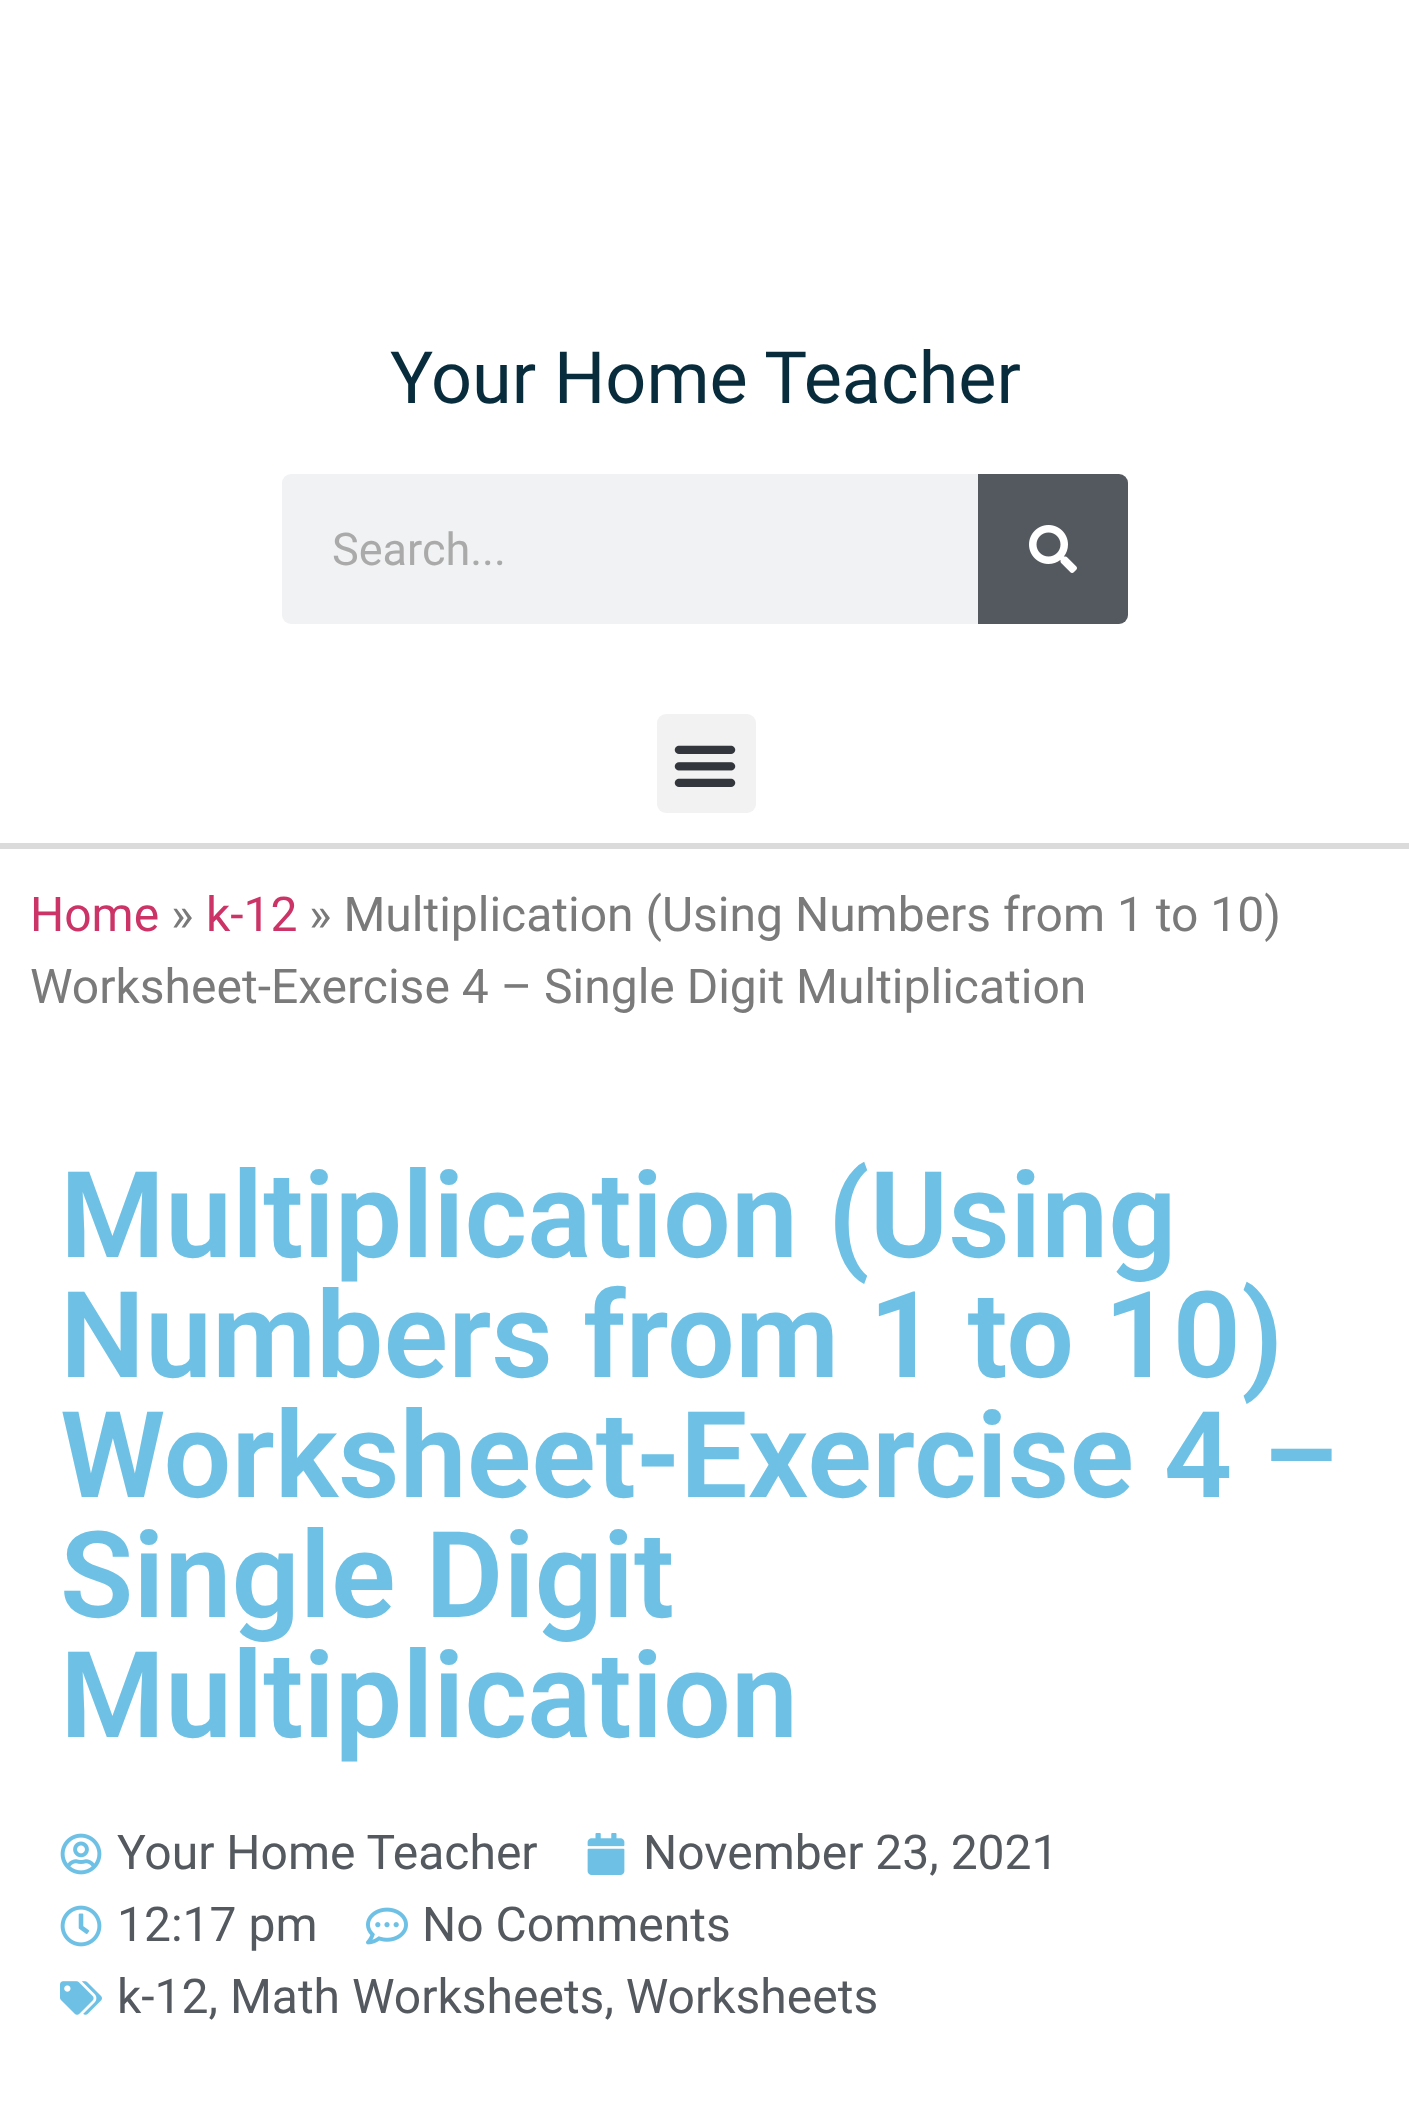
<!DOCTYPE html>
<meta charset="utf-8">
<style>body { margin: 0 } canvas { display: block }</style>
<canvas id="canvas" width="1409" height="2110"></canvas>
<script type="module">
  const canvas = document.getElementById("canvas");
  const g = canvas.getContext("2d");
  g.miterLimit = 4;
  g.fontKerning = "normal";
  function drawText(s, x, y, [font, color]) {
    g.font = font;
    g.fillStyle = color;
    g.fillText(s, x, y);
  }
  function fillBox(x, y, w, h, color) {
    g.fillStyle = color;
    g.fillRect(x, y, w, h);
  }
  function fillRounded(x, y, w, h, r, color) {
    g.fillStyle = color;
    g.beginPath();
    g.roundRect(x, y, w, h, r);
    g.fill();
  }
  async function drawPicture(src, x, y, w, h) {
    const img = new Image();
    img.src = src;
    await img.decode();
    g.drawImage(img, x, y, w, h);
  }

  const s1 = ["72px Roboto", "#082C3C"];
  const s2 = ["45px Roboto", "#AAAAAA"];
  const s3 = ["48px Roboto", "#CC3366"];
  const s4 = ["48px Roboto", "#7A7A7A"];
  const s5 = ["600 120px Roboto", "#6EC1E4"];
  const s6 = ["48px Roboto", "#54595F"];

  fillBox(0, 0, 1409, 2110, "#FFFFFF");
  drawText("Your Home Teacher", 390, 403, s1);
  fillRounded(282, 474, 846, 150, 9, "#F1F2F3");
  drawText("Search...", 332, 565, s2);
  g.fillStyle = "#54595F";
  g.beginPath();
  g.roundRect(978, 474, 150, 150, [0, 9, 9, 0]);
  g.fill();
  await drawPicture("pic1.png", 1029, 525, 48, 48);
  fillBox(0, 843, 1409, 6, "#DBDBDB");
  fillRounded(657, 714, 99, 99, 9, "#F2F2F2");
  await drawPicture("pic2.png", 674, 745, 62, 42);
  drawText("Home", 30, 931, s3);
  drawText("»", 171, 931, s4);
  drawText("k-12", 206, 931, s3);
  drawText("» Multiplication (Using Numbers from 1 to 10)", 309, 931, s4);
  drawText("Worksheet-Exercise 4 – Single Digit Multiplication", 30, 1003, s4);
  drawText("Multiplication (Using", 60, 1257, s5);
  drawText("Numbers from 1 to 10)", 60, 1377, s5);
  drawText("Worksheet-Exercise 4 –", 60, 1497, s5);
  drawText("Single Digit", 60, 1617, s5);
  drawText("Multiplication", 60, 1737, s5);
  await drawPicture("pic3.png", 60, 1833, 42, 42);
  drawText("Your Home Teacher", 117, 1869, s6);
  await drawPicture("pic4.png", 587, 1833, 38, 42);
  drawText("November 23, 2021", 643, 1869, s6);
  await drawPicture("pic5.png", 60, 1905, 42, 42);
  drawText("12:17 pm", 117, 1941, s6);
  await drawPicture("pic6.png", 366, 1907, 42, 38);
  drawText("No Comments", 422, 1941, s6);
  await drawPicture("pic7.png", 60, 1981, 42, 34);
  drawText("k-12, Math Worksheets, Worksheets", 117, 2013, s6);
</script>
